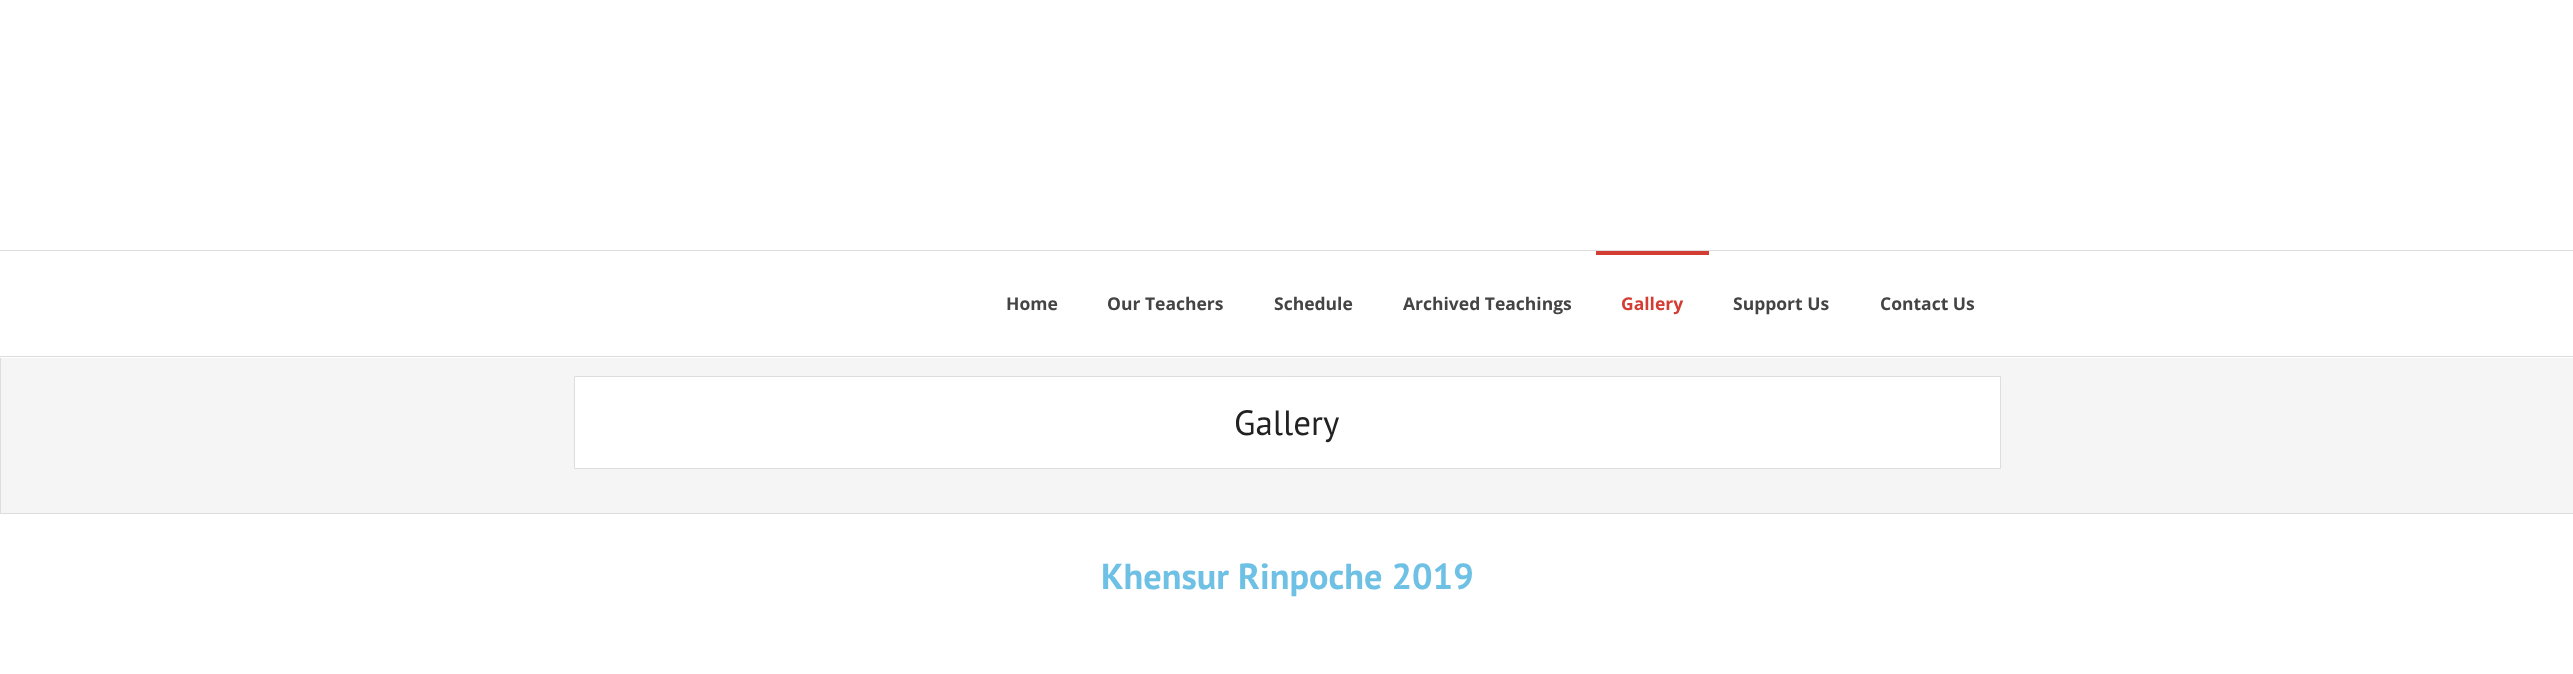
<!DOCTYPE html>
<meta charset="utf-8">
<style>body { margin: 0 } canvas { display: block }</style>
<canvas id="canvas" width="2573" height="674"></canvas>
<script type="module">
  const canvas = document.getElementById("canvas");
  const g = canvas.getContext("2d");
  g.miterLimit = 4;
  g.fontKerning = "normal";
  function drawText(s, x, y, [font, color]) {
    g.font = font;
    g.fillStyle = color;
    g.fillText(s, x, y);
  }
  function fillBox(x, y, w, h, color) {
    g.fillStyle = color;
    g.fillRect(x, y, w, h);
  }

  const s1 = ["bold 17.5px Open Sans", "#444444"];
  const s2 = ["bold 17.5px Open Sans", "#D33D33"];
  const s3 = ["35px PT Sans", "#222222"];
  const s4 = ["bold 36.25px PT Sans", "#6EC1E4"];

  fillBox(0, 0, 2573, 674, "#FFFFFF");
  fillBox(0, 356, 2573, 1, "#DDDDDD");
  fillBox(0, 250, 2573, 1, "#DDDDDD");
  drawText("Home", 1006, 310, s1);
  drawText("Our Teachers", 1107, 310, s1);
  drawText("Schedule", 1274, 310, s1);
  drawText("Archived Teachings", 1403, 310, s1);
  fillBox(1596, 251, 113, 4, "#D33D33");
  drawText("Gallery", 1621, 310, s2);
  drawText("Support Us", 1733, 310, s1);
  drawText("Contact Us", 1880, 310, s1);
  fillBox(1, 358, 2572, 155, "#F5F5F5");
  fillBox(0, 513, 2573, 1, "#DDDDDD");
  fillBox(0, 358, 1, 156, "#DDDDDD");
  g.fillStyle = "#FFFFFF";
  g.beginPath();
  g.rect(574.5, 376.5, 1426, 92);
  g.fill();
  g.strokeStyle = "#DDDDDD";
  g.stroke();
  drawText("Gallery", 1234, 435, s3);
  drawText("Khensur Rinpoche 2019", 1101, 589, s4);
</script>
